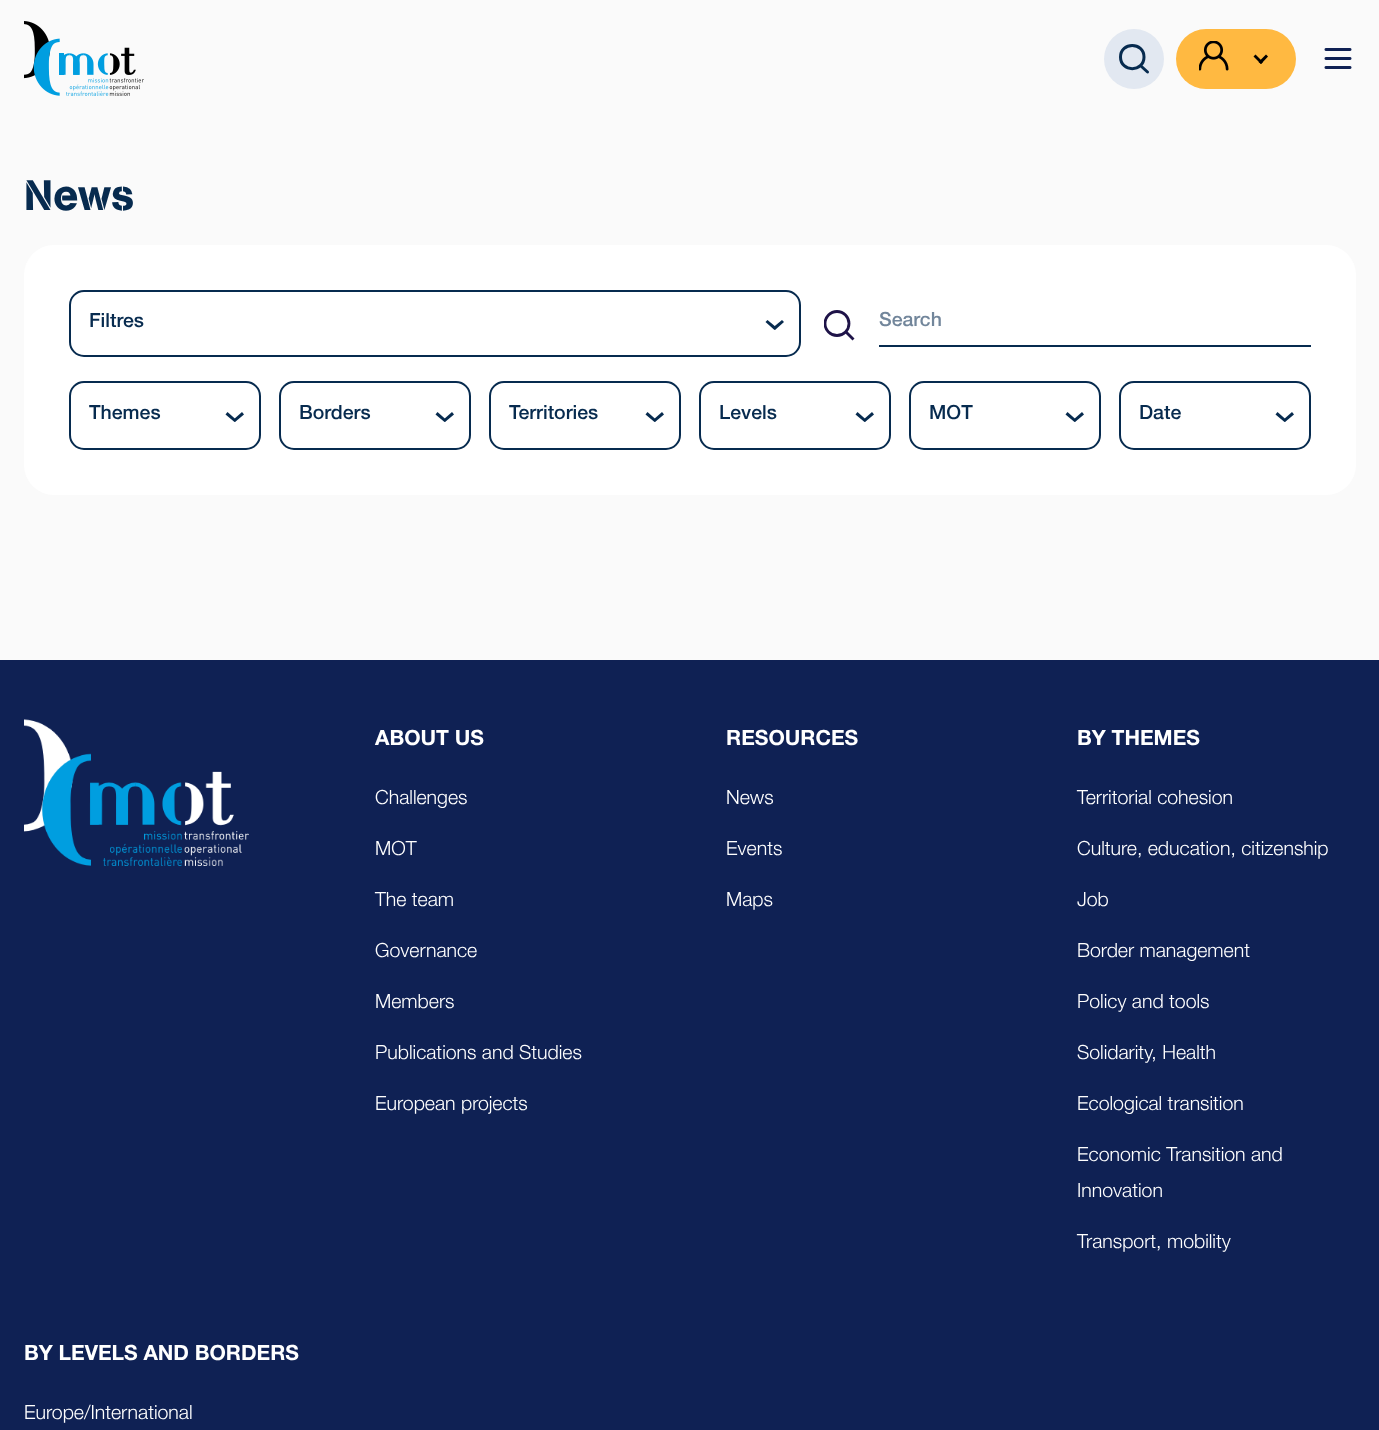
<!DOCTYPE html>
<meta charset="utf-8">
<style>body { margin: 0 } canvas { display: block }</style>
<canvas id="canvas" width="1379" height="1430"></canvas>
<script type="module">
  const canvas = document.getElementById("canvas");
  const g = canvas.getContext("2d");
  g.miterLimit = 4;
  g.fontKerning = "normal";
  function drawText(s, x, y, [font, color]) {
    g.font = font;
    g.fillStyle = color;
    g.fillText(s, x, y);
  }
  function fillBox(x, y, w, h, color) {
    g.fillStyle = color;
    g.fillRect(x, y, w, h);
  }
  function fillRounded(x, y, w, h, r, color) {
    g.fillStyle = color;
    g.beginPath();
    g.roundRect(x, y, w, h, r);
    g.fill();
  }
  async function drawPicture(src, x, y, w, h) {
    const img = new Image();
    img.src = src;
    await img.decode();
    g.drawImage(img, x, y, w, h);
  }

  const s1 = ["42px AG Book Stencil", "#072B4F"];
  const s2 = ["500 19.5px Helvetica Neue", "#072B4F"];
  const s3 = ["500 19.5px Helvetica Neue", "#72869B"];
  const s4 = ["bold 21px Helvetica Neue", "#FFFFFF"];
  const s5 = ["300 19.5px Helvetica Neue", "#FFFFFF"];

  fillBox(0, 0, 1379, 1430, "#FAFAFA");
  await drawPicture("pic1.png", 24, 21, 120, 75);
  g.fillStyle = "#E2E8F1";
  g.beginPath();
  g.arc(1134, 59, 30, 0, Math.PI * 2);
  g.fill();
  g.beginPath();
  g.moveTo(1144, 57);
  g.bezierCurveTo(1144, 72.5, 1120.5, 72.5, 1120.5, 57);
  g.bezierCurveTo(1120.5, 41.5, 1144, 41.5, 1144, 57);
  g.closePath();
  g.moveTo(1147.5, 72);
  g.lineTo(1141.5, 66.5);
  g.strokeStyle = "#072B4F";
  g.lineWidth = 3;
  g.lineCap = "round";
  g.lineJoin = "round";
  g.stroke();
  fillRounded(1176, 29, 120, 60, 30, "#FFB941");
  await drawPicture("pic2.png", 1199, 41, 30, 30);
  g.fillStyle = "#000000";
  g.beginPath();
  g.moveTo(1266, 54.5);
  g.lineTo(1268, 56.5);
  g.lineTo(1261, 64);
  g.lineTo(1258.5, 62);
  g.closePath();
  g.fill();
  g.beginPath();
  g.moveTo(1255.5, 54.5);
  g.lineTo(1263, 62);
  g.lineTo(1261, 64);
  g.lineTo(1253.5, 56.5);
  g.closePath();
  g.fill();
  await drawPicture("pic3.png", 1324, 48, 28, 21);
  drawText("News", 24, 210, s1);
  fillRounded(24, 245, 1332, 250, 30, "#FFFFFF");
  g.beginPath();
  g.roundRect(70, 291, 730, 65, 14);
  g.lineWidth = 2;
  g.lineJoin = "miter";
  g.stroke();
  drawText("Filtres", 89, 327, s2);
  g.beginPath();
  g.moveTo(775, 330);
  g.lineTo(773, 327.5);
  g.lineTo(782, 320);
  g.lineTo(784, 322);
  g.closePath();
  g.fill();
  g.beginPath();
  g.moveTo(776.5, 327.5);
  g.lineTo(774.5, 330);
  g.lineTo(765.5, 322);
  g.lineTo(767.5, 320);
  g.closePath();
  g.fill();
  g.save();
  g.beginPath();
  g.rect(824, 308, 33, 33);
  g.clip();
  g.beginPath();
  g.arc(837, 323.5, 12, 0, Math.PI * 2);
  g.strokeStyle = "#1E1348";
  g.lineWidth = 2.8;
  g.stroke();
  g.restore();
  g.beginPath();
  g.moveTo(846, 332);
  g.lineTo(853.5, 339.5);
  g.strokeStyle = "#1E1348";
  g.lineWidth = 2.8;
  g.lineCap = "butt";
  g.stroke();
  fillBox(879, 345, 432, 2, "#072B4F");
  drawText("Search", 879, 326, s3);
  g.beginPath();
  g.roundRect(70, 382, 190, 67, 14);
  g.strokeStyle = "#072B4F";
  g.lineWidth = 2;
  g.stroke();
  drawText("Themes", 89, 419, s2);
  g.beginPath();
  g.moveTo(235, 422);
  g.lineTo(233, 420);
  g.lineTo(242, 412);
  g.lineTo(244, 414.5);
  g.closePath();
  g.fill();
  g.beginPath();
  g.moveTo(236.5, 420);
  g.lineTo(234.5, 422);
  g.lineTo(225.5, 414.5);
  g.lineTo(227.5, 412);
  g.closePath();
  g.fill();
  g.beginPath();
  g.roundRect(280, 382, 190, 67, 14);
  g.stroke();
  drawText("Borders", 299, 419, s2);
  g.beginPath();
  g.moveTo(445, 422);
  g.lineTo(443, 420);
  g.lineTo(452, 412);
  g.lineTo(454, 414.5);
  g.closePath();
  g.fill();
  g.beginPath();
  g.moveTo(446.5, 420);
  g.lineTo(444.5, 422);
  g.lineTo(435.5, 414.5);
  g.lineTo(437.5, 412);
  g.closePath();
  g.fill();
  g.beginPath();
  g.roundRect(490, 382, 190, 67, 14);
  g.stroke();
  drawText("Territories", 509, 419, s2);
  g.beginPath();
  g.moveTo(655, 422);
  g.lineTo(653, 420);
  g.lineTo(662, 412);
  g.lineTo(664, 414.5);
  g.closePath();
  g.fill();
  g.beginPath();
  g.moveTo(656.5, 420);
  g.lineTo(654.5, 422);
  g.lineTo(645.5, 414.5);
  g.lineTo(647.5, 412);
  g.closePath();
  g.fill();
  g.beginPath();
  g.roundRect(700, 382, 190, 67, 14);
  g.stroke();
  drawText("Levels", 719, 419, s2);
  g.beginPath();
  g.moveTo(865, 422);
  g.lineTo(863, 420);
  g.lineTo(872, 412);
  g.lineTo(874, 414.5);
  g.closePath();
  g.fill();
  g.beginPath();
  g.moveTo(866.5, 420);
  g.lineTo(864.5, 422);
  g.lineTo(855.5, 414.5);
  g.lineTo(857.5, 412);
  g.closePath();
  g.fill();
  g.beginPath();
  g.roundRect(910, 382, 190, 67, 14);
  g.stroke();
  drawText("MOT", 929, 419, s2);
  g.beginPath();
  g.moveTo(1075, 422);
  g.lineTo(1073, 420);
  g.lineTo(1082, 412);
  g.lineTo(1084, 414.5);
  g.closePath();
  g.fill();
  g.beginPath();
  g.moveTo(1076.5, 420);
  g.lineTo(1074.5, 422);
  g.lineTo(1065.5, 414.5);
  g.lineTo(1067.5, 412);
  g.closePath();
  g.fill();
  g.beginPath();
  g.roundRect(1120, 382, 190, 67, 14);
  g.stroke();
  drawText("Date", 1139, 419, s2);
  g.beginPath();
  g.moveTo(1285, 422);
  g.lineTo(1283, 420);
  g.lineTo(1292, 412);
  g.lineTo(1294, 414.5);
  g.closePath();
  g.fill();
  g.beginPath();
  g.moveTo(1286.5, 420);
  g.lineTo(1284.5, 422);
  g.lineTo(1275.5, 414.5);
  g.lineTo(1277.5, 412);
  g.closePath();
  g.fill();
  fillBox(0, 660, 1379, 770, "#0F2154");
  await drawPicture("pic4.png", 24, 719, 225, 147);
  drawText("ABOUT US", 375, 745, s4);
  drawText("Challenges", 375, 804, s5);
  drawText("MOT", 375, 855, s5);
  drawText("The team", 375, 906, s5);
  drawText("Governance", 375, 957, s5);
  drawText("Members", 375, 1008, s5);
  drawText("Publications and Studies", 375, 1059, s5);
  drawText("European projects", 375, 1110, s5);
  drawText("RESOURCES", 726, 745, s4);
  drawText("News", 726, 804, s5);
  drawText("Events", 726, 855, s5);
  drawText("Maps", 726, 906, s5);
  drawText("BY THEMES", 1077, 745, s4);
  drawText("Territorial cohesion", 1077, 804, s5);
  drawText("Culture, education, citizenship", 1077, 855, s5);
  drawText("Job", 1077, 906, s5);
  drawText("Border management", 1077, 957, s5);
  drawText("Policy and tools", 1077, 1008, s5);
  drawText("Solidarity, Health", 1077, 1059, s5);
  drawText("Ecological transition", 1077, 1110, s5);
  drawText("Economic Transition and", 1077, 1161, s5);
  drawText("Innovation", 1077, 1197, s5);
  drawText("Transport, mobility", 1077, 1248, s5);
  drawText("BY LEVELS AND BORDERS", 24, 1360, s4);
  drawText("Europe/International", 24, 1419, s5);
</script>
